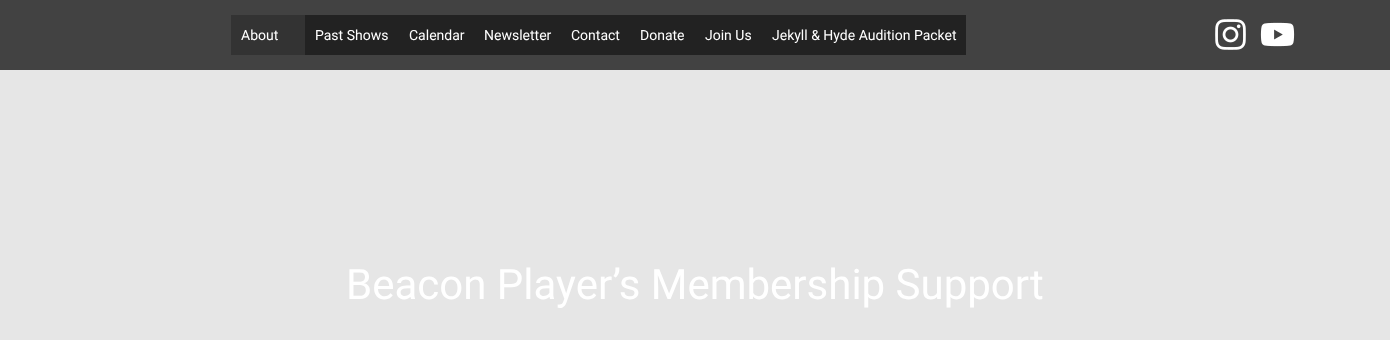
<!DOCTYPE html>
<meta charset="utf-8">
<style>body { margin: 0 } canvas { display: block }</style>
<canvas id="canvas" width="1390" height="340"></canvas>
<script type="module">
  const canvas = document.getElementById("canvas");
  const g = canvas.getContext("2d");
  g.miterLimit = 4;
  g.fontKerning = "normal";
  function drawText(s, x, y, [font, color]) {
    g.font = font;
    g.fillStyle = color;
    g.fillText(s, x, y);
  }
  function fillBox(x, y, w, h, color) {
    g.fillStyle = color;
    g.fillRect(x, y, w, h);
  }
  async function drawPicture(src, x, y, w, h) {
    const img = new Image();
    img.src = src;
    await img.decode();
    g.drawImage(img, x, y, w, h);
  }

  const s1 = ["14px Roboto", "#FFFFFF"];
  const s2 = ["42px Roboto", "#FFFFFF"];

  fillBox(0, 0, 1390, 340, "#E6E6E6");
  fillBox(0, 0, 1390, 70, "#424242");
  fillBox(305, 15, 661, 40, "#222222");
  fillBox(231, 15, 74, 40, "#333333");
  drawText("About", 241, 40, s1);
  drawText("Past Shows", 315, 40, s1);
  drawText("Calendar", 409, 40, s1);
  drawText("Newsletter", 484, 40, s1);
  drawText("Contact", 571, 40, s1);
  drawText("Donate", 640, 40, s1);
  drawText("Join Us", 705, 40, s1);
  drawText("Jekyll & Hyde Audition Packet", 772, 40, s1);
  await drawPicture("pic1.png", 1215, 19, 31, 31);
  await drawPicture("pic2.png", 1260, 22, 35, 25);
  drawText("Beacon Player’s Membership Support", 346, 299, s2);
</script>
